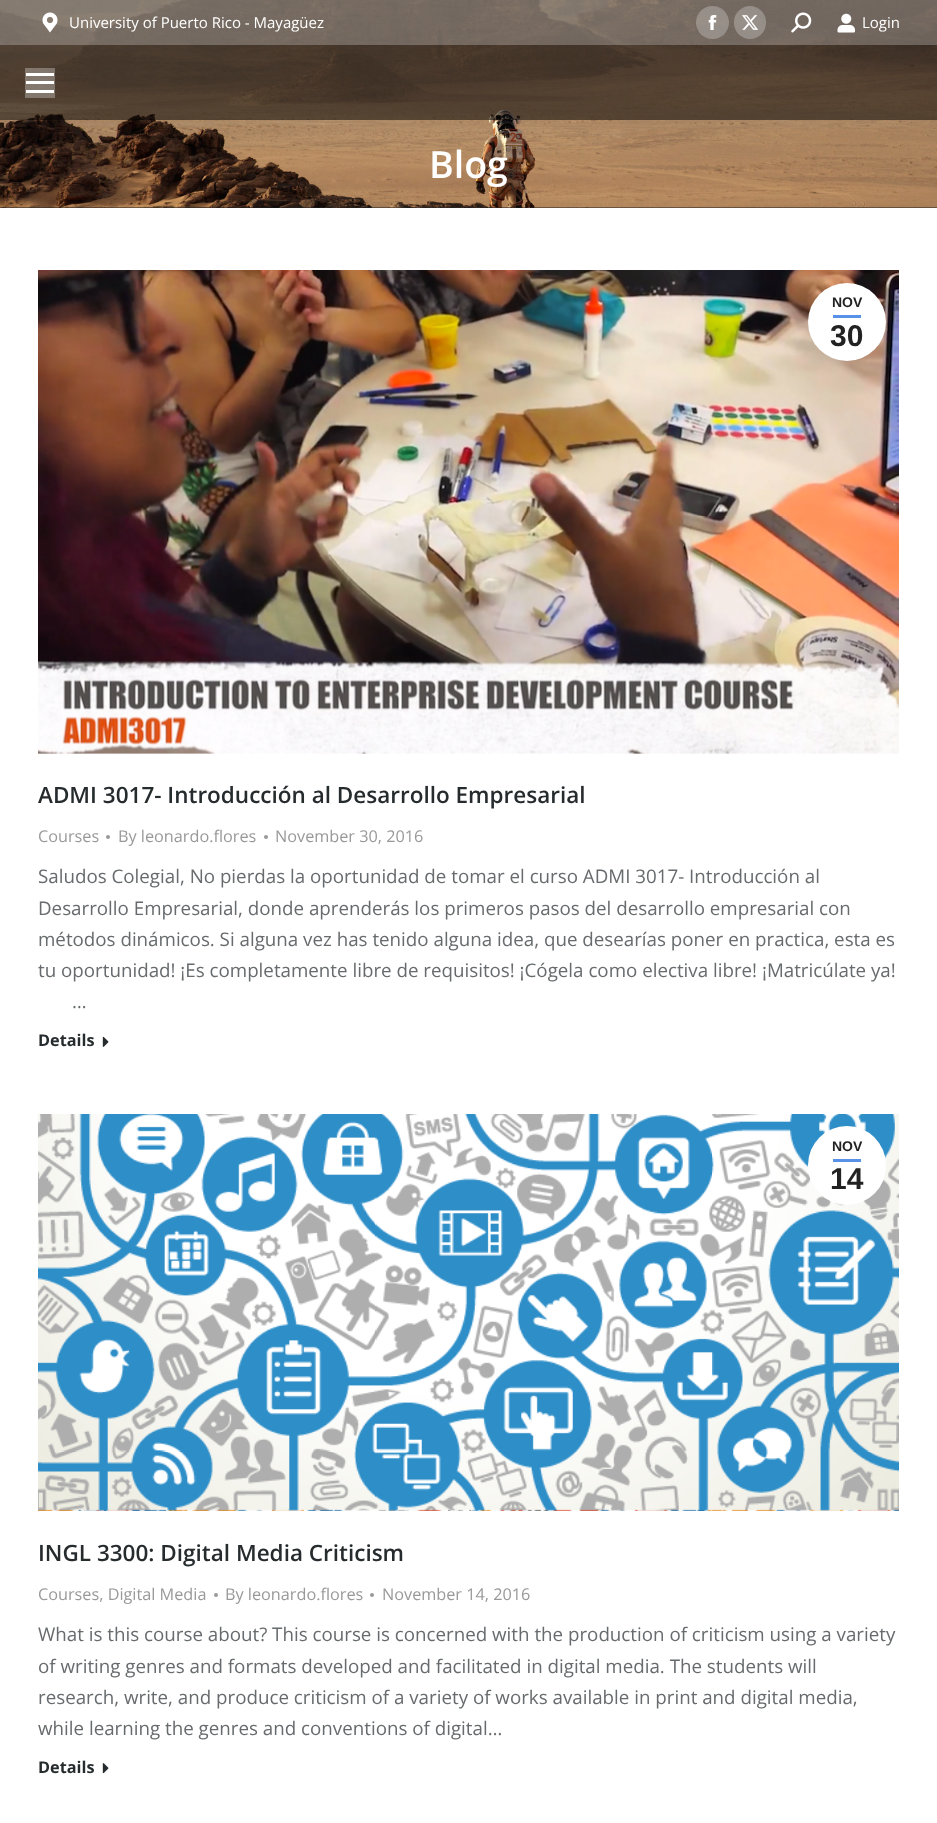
<!DOCTYPE html>
<meta charset="utf-8">
<style>body { margin: 0 } canvas { display: block }</style>
<canvas id="canvas" width="937" height="1823"></canvas>
<script type="module">
  const canvas = document.getElementById("canvas");
  const g = canvas.getContext("2d");
  g.miterLimit = 4;
  g.fontKerning = "normal";
  function drawText(s, x, y, [font, color]) {
    g.font = font;
    g.fillStyle = color;
    g.fillText(s, x, y);
  }
  function fillBox(x, y, w, h, color) {
    g.fillStyle = color;
    g.fillRect(x, y, w, h);
  }
  function fillRounded(x, y, w, h, r, color) {
    g.fillStyle = color;
    g.beginPath();
    g.roundRect(x, y, w, h, r);
    g.fill();
  }
  async function drawPicture(src, x, y, w, h) {
    const img = new Image();
    img.src = src;
    await img.decode();
    g.drawImage(img, x, y, w, h);
  }

  const s1 = ["15px Open Sans", "#FFFFFF"];
  const s2 = ["600 37.5px Open Sans", "#FFFFFF"];
  const s3 = ["bold 14px Liberation Sans", "#222222"];
  const s4 = ["bold 30px Liberation Sans", "#222222"];
  const s5 = ["600 22.5px Open Sans", "#262B2E"];
  const s6 = ["16.25px Open Sans", "#999999"];
  const s7 = ["18.75px Open Sans", "#676B6D"];
  const s8 = ["bold 16.25px Open Sans", "#262B2E"];

  fillBox(0, 0, 937, 1823, "#FFFFFF");
  fillBox(0, 207, 937, 1, "#222222");
  await drawPicture("pic6.png", 0, 0, 937, 208);
  fillBox(0, 0, 937, 120, "rgba(0, 0, 0, 0.5)");
  fillBox(0, 0, 937, 45, "rgba(255, 255, 255, 0.25)");
  await drawPicture("pic1.png", 42, 12, 16, 21);
  drawText("University of Puerto Rico - Mayagüez", 69, 28, s1);
  g.fillStyle = "rgba(255, 255, 255, 0.25)";
  g.beginPath();
  g.arc(712.5, 22.5, 16.5, 0, Math.PI * 2);
  g.fill();
  await drawPicture("pic2.png", 708, 15, 9, 15);
  fillRounded(734, 6, 32, 33, 16, "rgba(255, 255, 255, 0.25)");
  await drawPicture("pic3.png", 742, 15, 16, 15);
  await drawPicture("pic4.png", 791, 12, 21, 21);
  await drawPicture("pic5.png", 837, 13, 18, 20);
  drawText("Login", 862, 28, s1);
  fillBox(25, 68, 30, 30, "rgba(255, 255, 255, 0.3)");
  fillBox(26, 73, 28, 3, "#FFFFFF");
  fillBox(26, 81, 28, 3, "#FFFFFF");
  fillBox(26, 90, 28, 3, "#FFFFFF");
  drawText("Blog", 429, 178, s2);
  await drawPicture("pic7.png", 38, 270, 861, 484);
  g.beginPath();
  g.arc(847, 322, 39, 0, Math.PI * 2);
  g.fill();
  drawText("NOV", 832, 307, s3);
  fillBox(833, 315, 28, 3, "#5891E8");
  drawText("30", 830, 346, s4);
  drawText("ADMI 3017- Introducción al Desarrollo Empresarial", 38, 803, s5);
  drawText("Courses", 38, 842, s6);
  g.beginPath();
  g.arc(108, 837, 2, 0, Math.PI * 2);
  g.fill();
  drawText("By leonardo.flores", 118, 842, s6);
  g.beginPath();
  g.arc(266, 837, 2, 0, Math.PI * 2);
  g.fill();
  drawText("November 30, 2016", 275, 842, s6);
  drawText("Saludos Colegial, No pierdas la oportunidad de tomar el curso ADMI 3017- Introducción al", 38, 883, s7);
  drawText("Desarrollo Empresarial, donde aprenderás los primeros pasos del desarrollo empresarial con", 38, 915, s7);
  drawText("métodos dinámicos. Si alguna vez has tenido alguna idea, que desearías poner en practica, esta es", 38, 946, s7);
  drawText("tu oportunidad! ¡Es completamente libre de requisitos! ¡Cógela como electiva libre! ¡Matricúlate ya!", 38, 977, s7);
  drawText("…", 72, 1008, s7);
  drawText("Details", 38, 1046, s8);
  await drawPicture("pic8.png", 102, 1036, 7, 11);
  await drawPicture("pic9.png", 38, 1114, 861, 397);
  fillRounded(808, 1126, 78, 79, 39, "#FFFFFF");
  drawText("NOV", 832, 1151, s3);
  fillBox(833, 1159, 28, 3, "#5891E8");
  drawText("14", 830, 1189, s4);
  drawText("INGL 3300: Digital Media Criticism", 38, 1561, s5);
  drawText("Courses, Digital Media", 38, 1600, s6);
  g.beginPath();
  g.arc(216, 1595, 2, 0, Math.PI * 2);
  g.fill();
  drawText("By leonardo.flores", 225, 1600, s6);
  g.beginPath();
  g.arc(372, 1595, 2, 0, Math.PI * 2);
  g.fill();
  drawText("November 14, 2016", 382, 1600, s6);
  drawText("What is this course about? This course is concerned with the production of criticism using a variety", 38, 1641, s7);
  drawText("of writing genres and formats developed and facilitated in digital media. The students will", 38, 1673, s7);
  drawText("research, write, and produce criticism of a variety of works available in print and digital media,", 38, 1704, s7);
  drawText("while learning the genres and conventions of digital…", 38, 1735, s7);
  drawText("Details", 38, 1773, s8);
  await drawPicture("pic10.png", 102, 1763, 7, 11);
</script>
